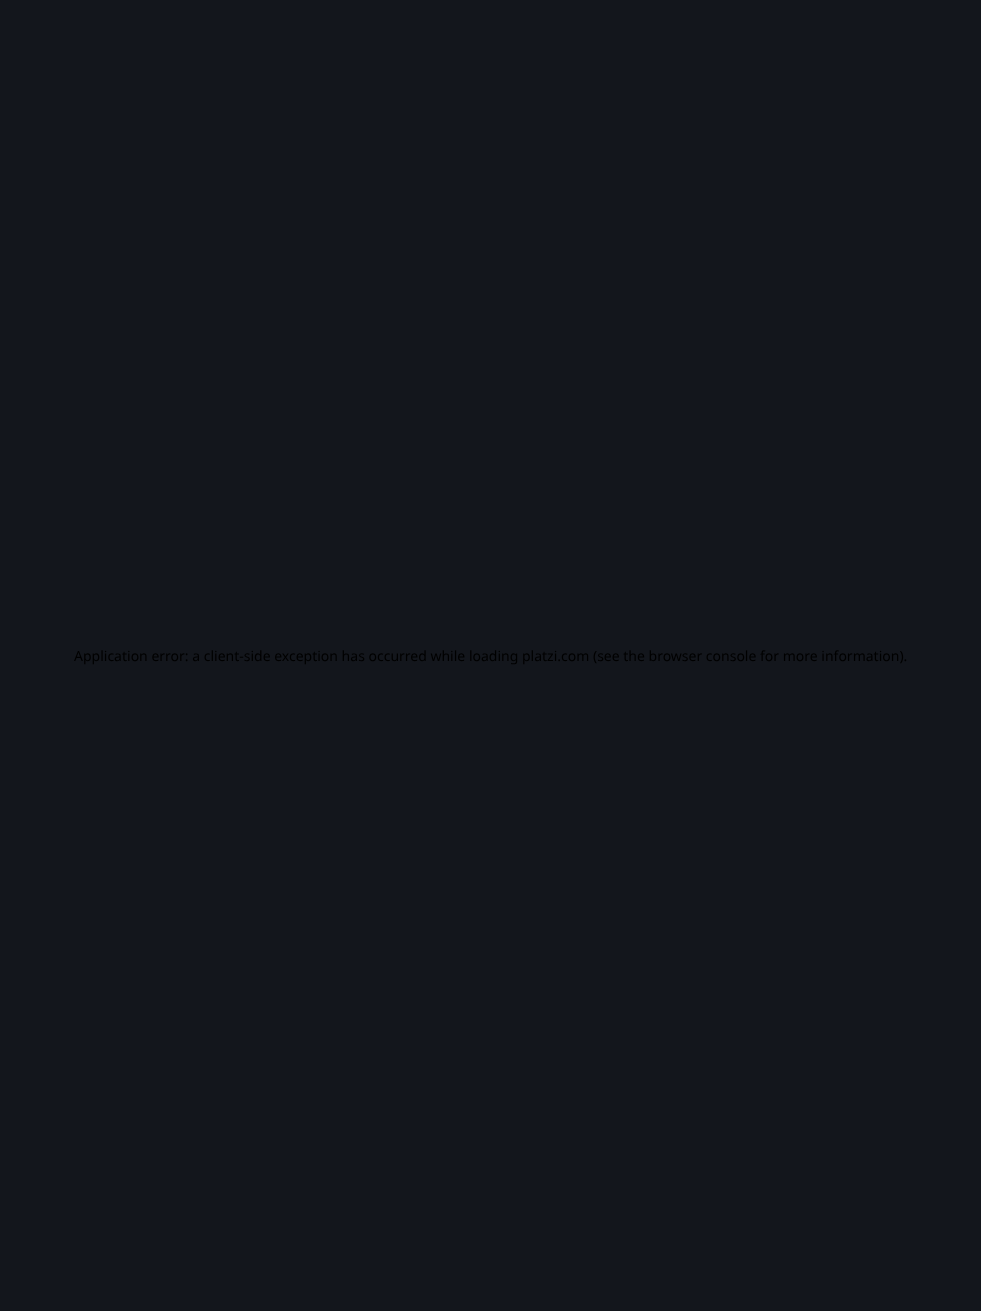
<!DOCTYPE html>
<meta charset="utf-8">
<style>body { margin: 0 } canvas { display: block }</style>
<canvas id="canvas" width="981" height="1311"></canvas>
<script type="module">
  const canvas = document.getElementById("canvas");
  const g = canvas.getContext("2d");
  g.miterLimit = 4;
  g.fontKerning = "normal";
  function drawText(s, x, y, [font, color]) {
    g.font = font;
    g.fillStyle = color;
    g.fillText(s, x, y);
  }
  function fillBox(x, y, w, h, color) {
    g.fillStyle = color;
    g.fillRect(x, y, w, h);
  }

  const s1 = ["14px Noto Sans", "#000000"];

  fillBox(0, 0, 981, 1311, "#13161C");
  drawText("Application error: a client-side exception has occurred while loading platzi.com (see the browser console for more information).", 74, 661, s1);
</script>
